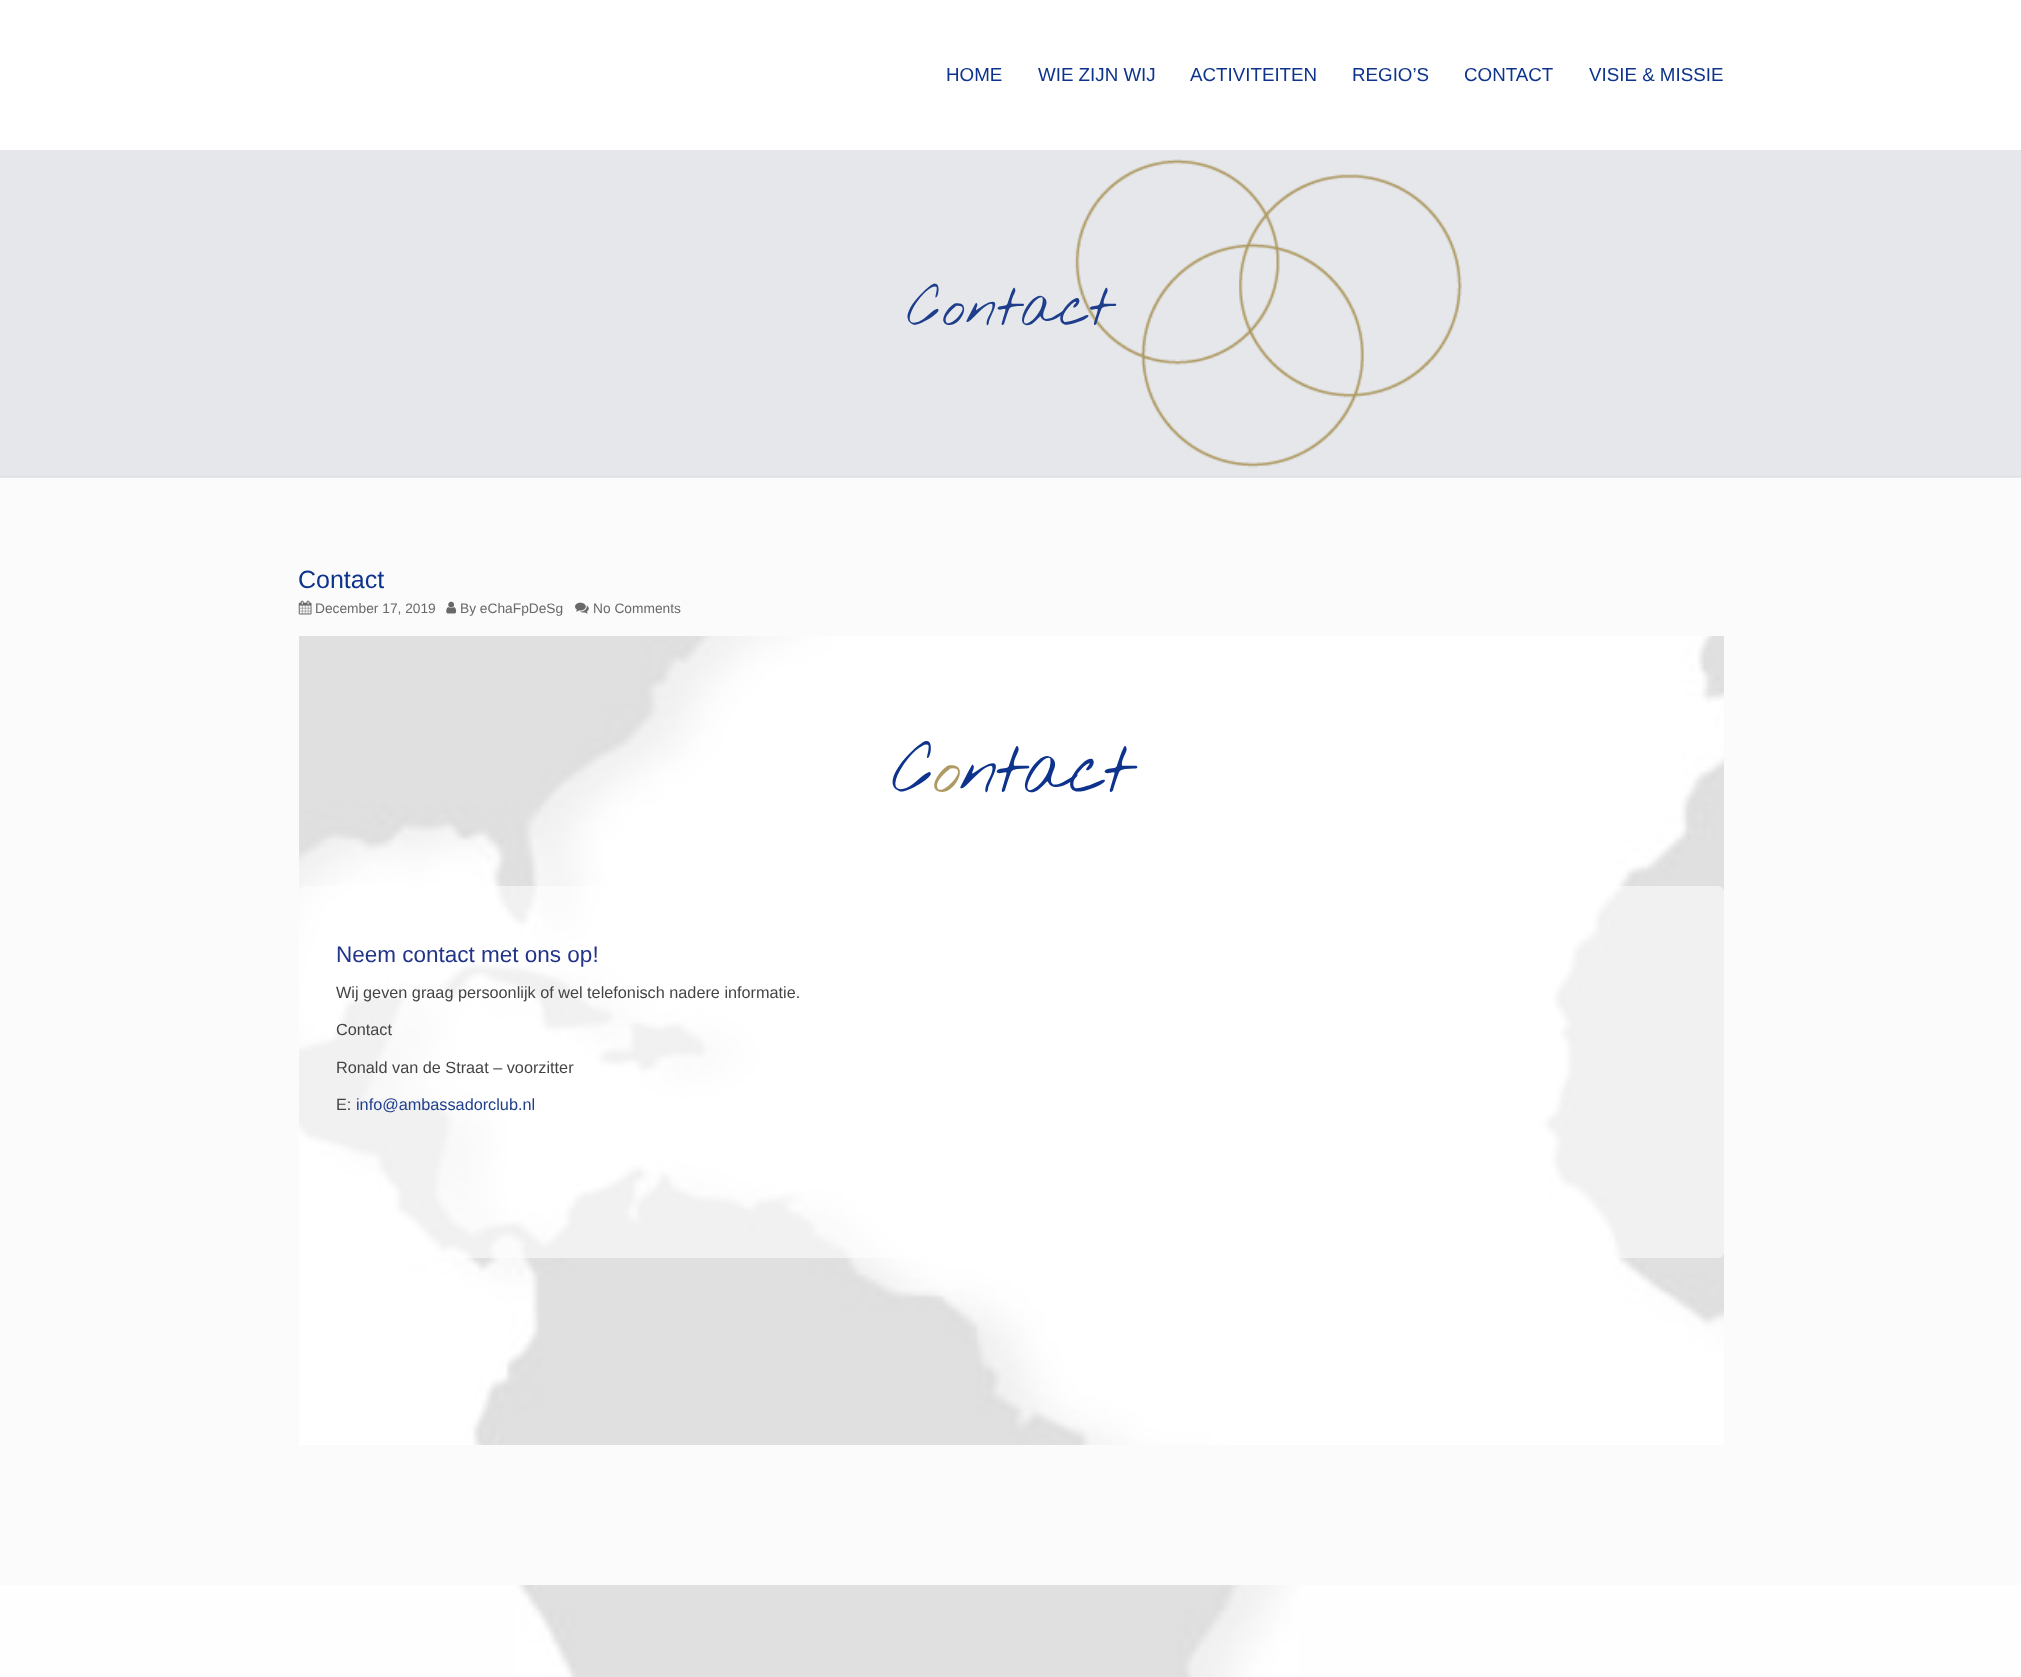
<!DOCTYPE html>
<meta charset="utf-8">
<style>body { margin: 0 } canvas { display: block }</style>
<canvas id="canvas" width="2021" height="1677"></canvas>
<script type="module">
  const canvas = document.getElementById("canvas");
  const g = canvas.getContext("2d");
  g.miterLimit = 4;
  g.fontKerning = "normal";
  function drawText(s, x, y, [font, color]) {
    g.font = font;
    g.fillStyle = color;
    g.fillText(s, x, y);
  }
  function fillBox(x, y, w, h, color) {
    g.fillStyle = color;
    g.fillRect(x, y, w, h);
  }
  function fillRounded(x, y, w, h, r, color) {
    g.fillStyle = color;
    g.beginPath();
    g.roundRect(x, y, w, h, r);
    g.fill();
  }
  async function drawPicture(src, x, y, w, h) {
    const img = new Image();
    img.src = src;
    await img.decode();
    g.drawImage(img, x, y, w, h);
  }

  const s1 = ["18.75px Liberation Sans", "#0E338C"];
  const s2 = ["100 56px Nothing You Could Do", "#1E3E8B"];
  const s3 = ["25px Liberation Sans", "#0E338C"];
  const s4 = ["13.75px Liberation Sans", "#696969"];
  const s5 = ["100 69px Nothing You Could Do", "#0E338C"];
  const s6 = ["100 69px Nothing You Could Do", "#AE9A63"];
  const s7 = ["22.5px Liberation Sans", "#223487"];
  const s8 = ["16.25px Liberation Sans", "#444444"];
  const s9 = ["16.25px Liberation Sans", "#1E3E8B"];

  fillBox(0, 0, 2021, 1677, "#FBFBFB");
  fillBox(0, 0, 2021, 150, "#FFFFFF");
  drawText("HOME", 946, 81, s1);
  drawText("WIE ZIJN WIJ", 1038, 81, s1);
  drawText("ACTIVITEITEN", 1190, 81, s1);
  drawText("REGIO’S", 1352, 81, s1);
  drawText("CONTACT", 1464, 81, s1);
  drawText("VISIE & MISSIE", 1589, 81, s1);
  fillBox(0, 1585, 2021, 92, "#FEFEFE");
  fillBox(0, 150, 2021, 328, "#E5E7EB");
  await drawPicture("pic1.png", 1075, 159, 387, 309);
  fillBox(0, 476, 2021, 1, "#DEE0E4");
  drawText("Contact", 907, 325, s2);
  drawText("Contact", 298, 588, s3);
  await drawPicture("pic2.png", 298, 600, 14, 15);
  drawText("December 17, 2019", 315, 613, s4);
  await drawPicture("pic3.png", 446, 601, 11, 13);
  drawText("By eChaFpDeSg", 460, 613, s4);
  await drawPicture("pic4.png", 575, 602, 14, 12);
  drawText("No Comments", 593, 613, s4);
  await drawPicture("pic5.png", 299, 636, 1425, 809);
  g.letterSpacing = "-2px";
  drawText("C", 892, 792, s5);
  drawText("o", 932, 792, s6);
  drawText("ntact", 959, 792, s5);
  fillRounded(299, 886, 1425, 372, 6, "rgba(255, 255, 255, 0.55)");
  g.letterSpacing = "0px";
  drawText("Neem contact met ons op!", 336, 962, s7);
  drawText("Wij geven graag persoonlijk of wel telefonisch nadere informatie.", 336, 998, s8);
  drawText("Contact", 336, 1035, s8);
  drawText("Ronald van de Straat – voorzitter", 336, 1073, s8);
  drawText("E:", 336, 1110, s8);
  drawText("info@ambassadorclub.nl", 356, 1110, s9);
  await drawPicture("pic6.png", 515, 1585, 784, 92);
</script>
